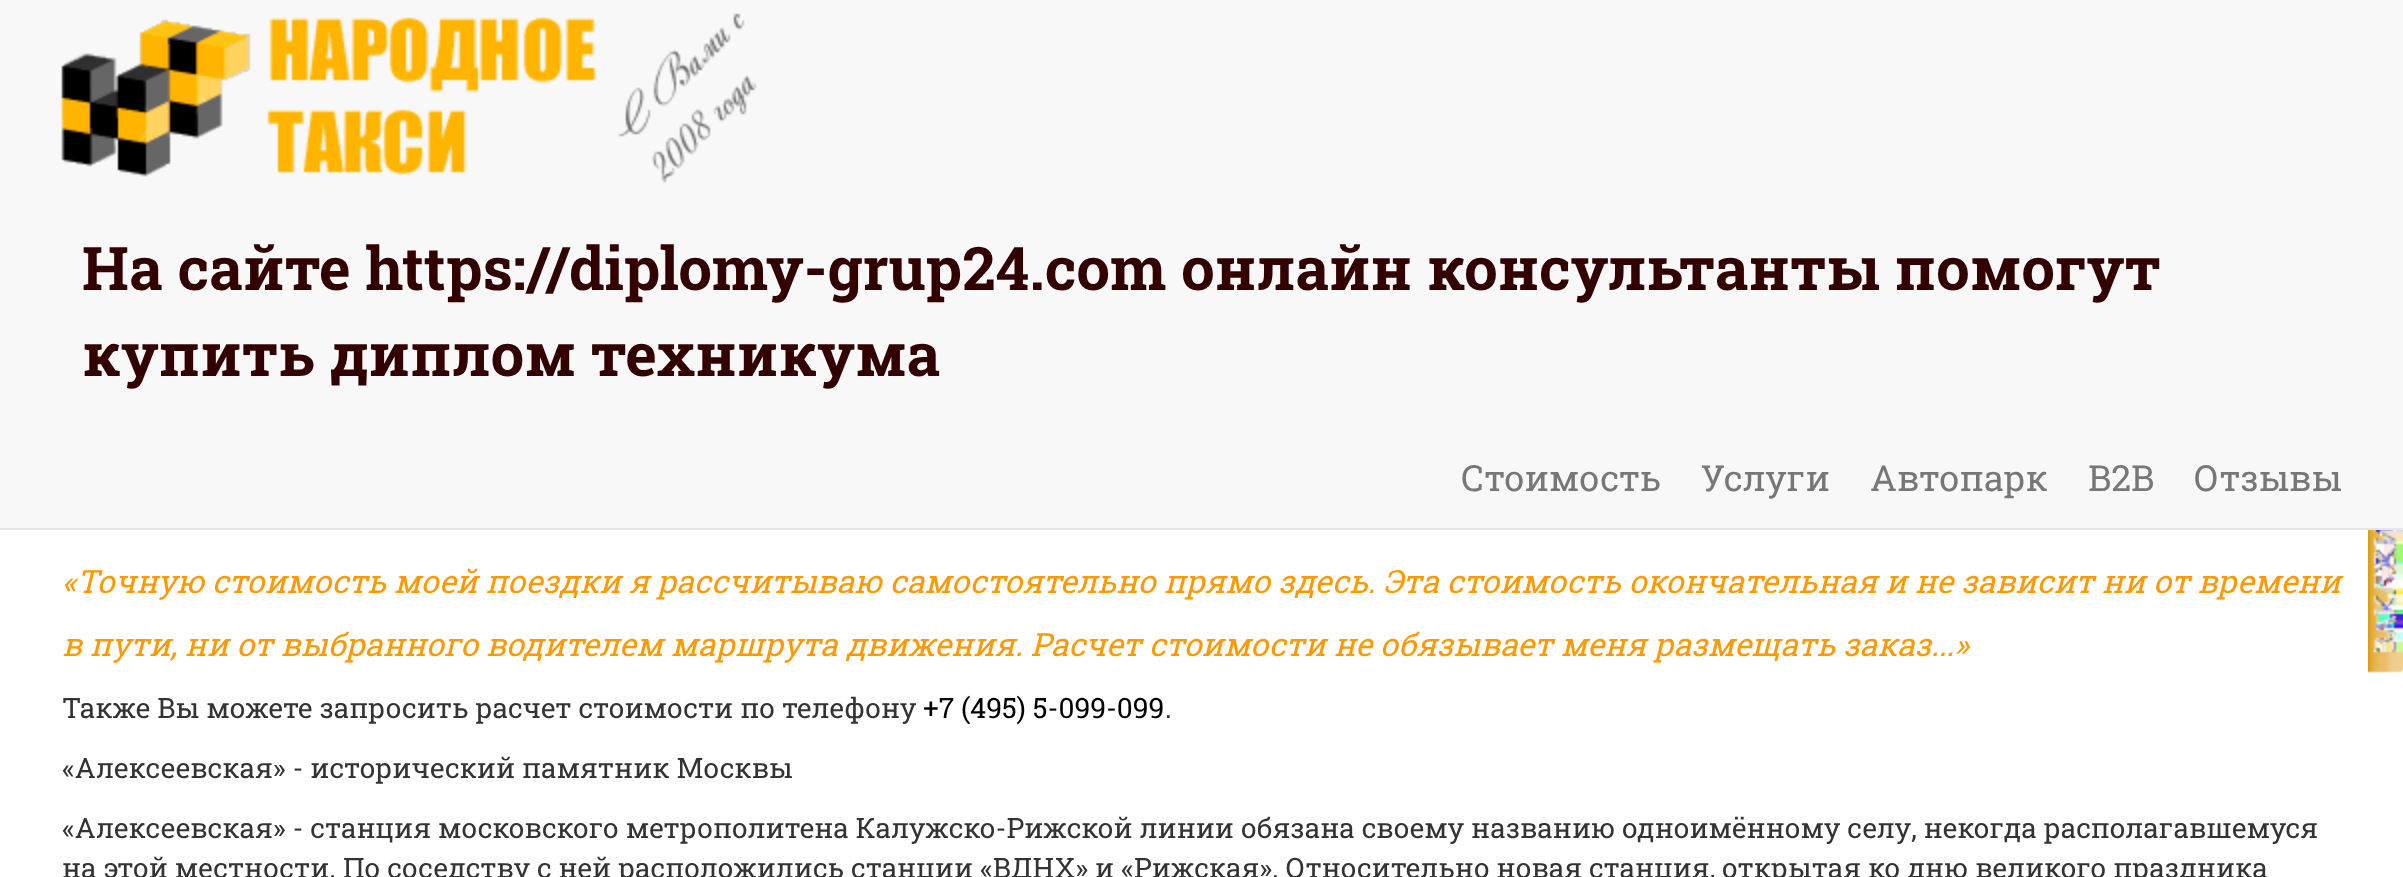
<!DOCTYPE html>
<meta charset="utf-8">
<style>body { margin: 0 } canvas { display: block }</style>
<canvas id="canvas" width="2403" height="877"></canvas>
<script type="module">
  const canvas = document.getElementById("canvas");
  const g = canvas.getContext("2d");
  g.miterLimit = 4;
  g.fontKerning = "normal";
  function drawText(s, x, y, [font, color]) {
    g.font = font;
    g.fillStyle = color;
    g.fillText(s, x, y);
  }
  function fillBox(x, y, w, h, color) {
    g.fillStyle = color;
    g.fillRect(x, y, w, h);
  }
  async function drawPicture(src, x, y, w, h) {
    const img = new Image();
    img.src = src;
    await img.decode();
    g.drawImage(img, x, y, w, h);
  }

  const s1 = ["bold 60px Roboto Slab", "#330000"];
  const s2 = ["36px Roboto Slab", "#777777"];
  const s3 = ["italic 32px Roboto Slab", "#FF9900"];
  const s4 = ["28px Roboto Slab", "#333333"];
  const s5 = ["28px Roboto Slab", "#000000"];

  fillBox(0, 0, 2403, 877, "#FFFFFF");
  fillBox(0, 0, 2403, 528, "#F8F8F8");
  fillBox(0, 528, 2403, 2, "#E7E7E7");
  await drawPicture("pic1.png", 61, 13, 696, 170);
  drawText("На сайте https://diplomy-grup24.com онлайн консультанты помогут", 82, 290, s1);
  drawText("купить диплом техникума", 82, 376, s1);
  drawText("Стоимость", 1461, 491, s2);
  drawText("Услуги", 1701, 491, s2);
  drawText("Автопарк", 1870, 491, s2);
  drawText("B2B", 2088, 491, s2);
  drawText("Отзывы", 2194, 491, s2);
  drawText("«Точную стоимость моей поездки я рассчитываю самостоятельно прямо здесь. Эта стоимость окончательная и не зависит ни от времени", 62, 593, s3);
  drawText("в пути, ни от выбранного водителем маршрута движения. Расчет стоимости не обязывает меня размещать заказ...»", 62, 656, s3);
  drawText("Также Вы можете запросить расчет стоимости по телефону", 62, 718, s4);
  drawText("+7 (495) 5-099-099", 923, 718, s5);
  drawText(".", 1165, 718, s4);
  drawText("«Алексеевская» - исторический памятник Москвы", 62, 778, s4);
  drawText("«Алексеевская» - станция московского метрополитена Калужско-Рижской линии обязана своему названию одноимённому селу, некогда располагавшемуся", 62, 838, s4);
  drawText("на этой местности. По соседству с ней расположились станции «ВДНХ» и «Рижская». Относительно новая станция, открытая ко дню великого праздника", 62, 878, s4);
  await drawPicture("pic2.png", 2368, 530, 35, 143);
</script>
